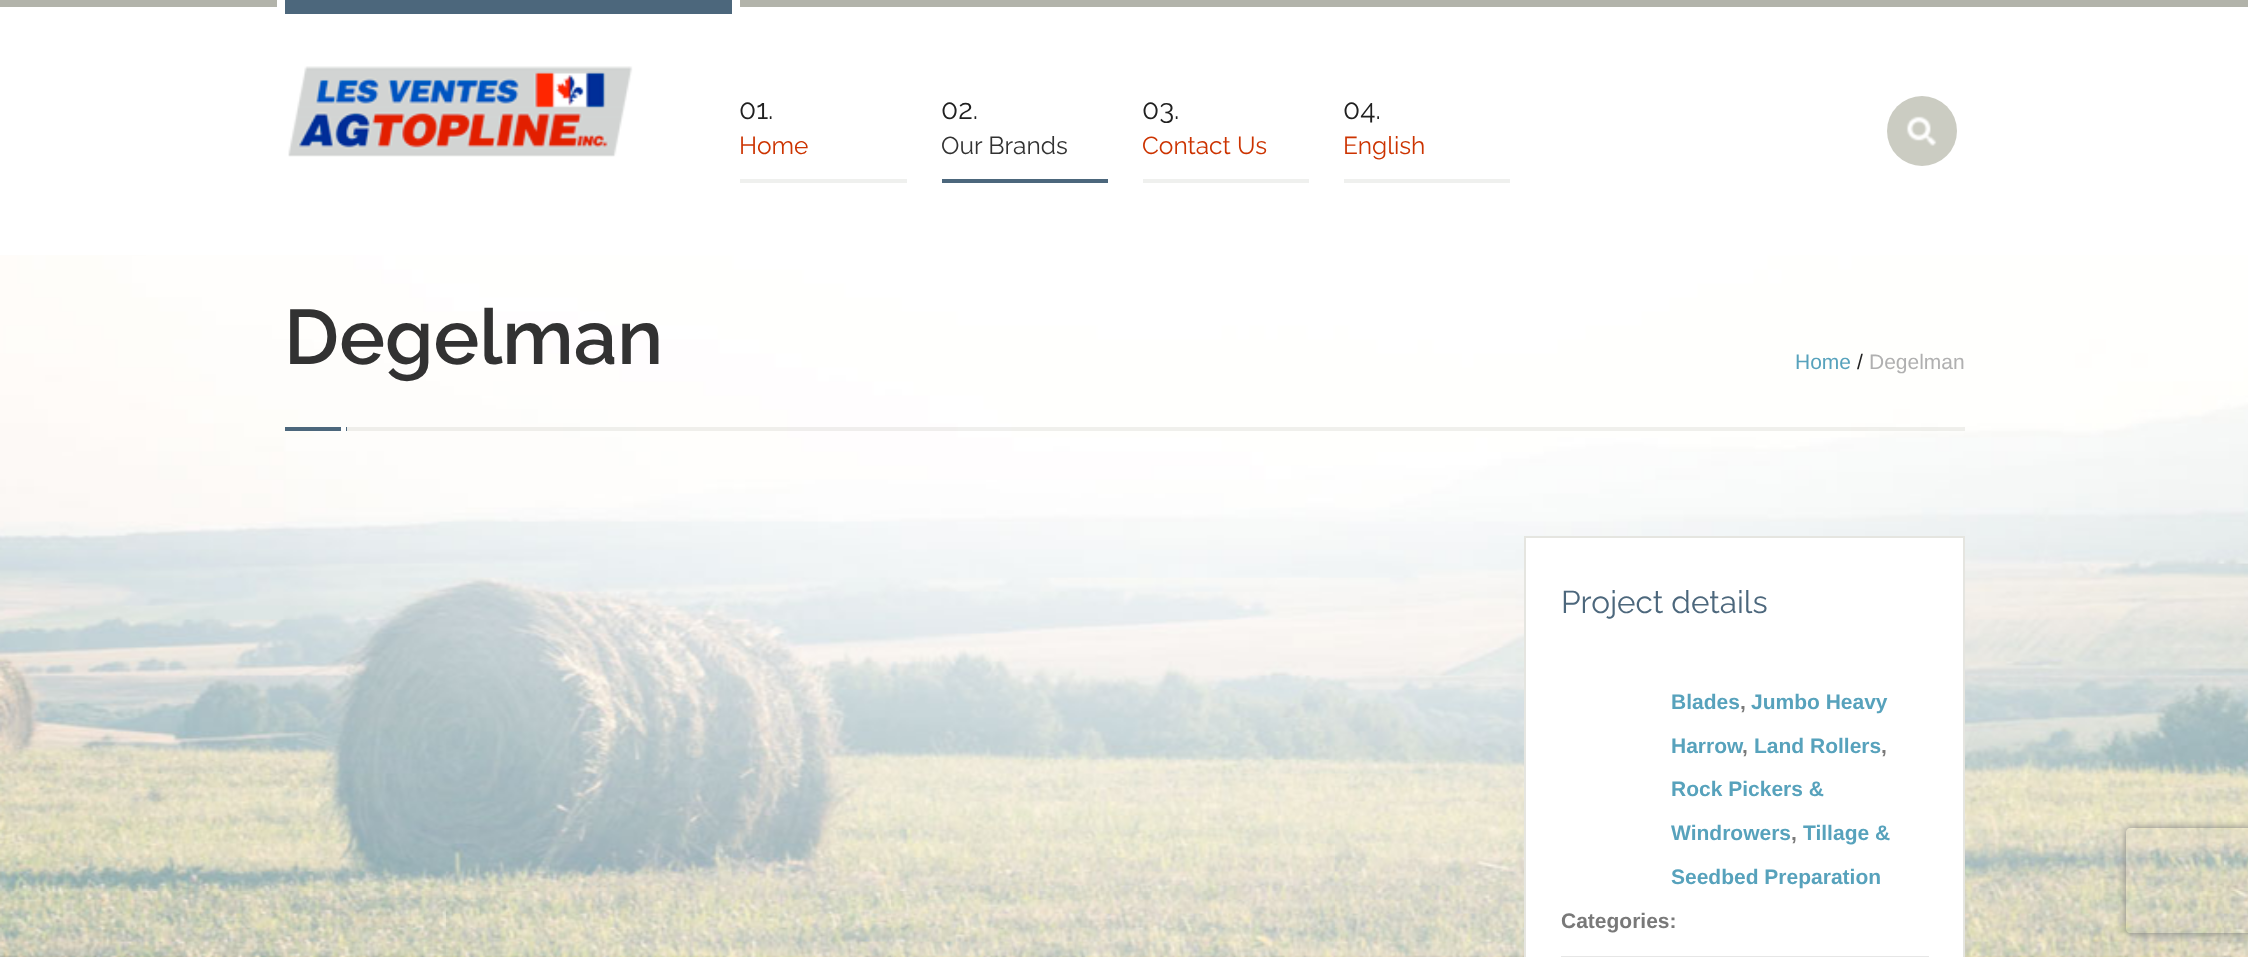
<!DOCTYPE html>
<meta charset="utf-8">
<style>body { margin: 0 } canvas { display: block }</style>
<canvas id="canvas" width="2248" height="957"></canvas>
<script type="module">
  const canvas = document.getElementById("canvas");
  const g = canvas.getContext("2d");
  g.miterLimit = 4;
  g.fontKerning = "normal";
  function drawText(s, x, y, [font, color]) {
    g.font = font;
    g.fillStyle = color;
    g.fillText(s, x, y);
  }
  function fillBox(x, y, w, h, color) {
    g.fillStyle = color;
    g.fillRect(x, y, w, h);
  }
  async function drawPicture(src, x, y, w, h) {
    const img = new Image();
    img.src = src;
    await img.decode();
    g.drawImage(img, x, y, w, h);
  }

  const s1 = ["28px Raleway", "#202020"];
  const s2 = ["24.5px Raleway", "#CC3300"];
  const s3 = ["24.5px Raleway", "#323232"];
  const s4 = ["600 77px Raleway", "#323232"];
  const s5 = ["21px Liberation Sans", "#57A2BC"];
  const s6 = ["21px Liberation Sans", "#202020"];
  const s7 = ["21px Liberation Sans", "#B0B0B0"];
  const s8 = ["31.5px Raleway", "#4C677C"];
  const s9 = ["bold 21px Liberation Sans", "#57A2BC"];
  const s10 = ["bold 21px Liberation Sans", "#797979"];

  fillBox(0, 0, 2248, 957, "#FFFFFF");
  await drawPicture("pic1.png", 0, 255, 2248, 702);
  fillBox(0, 0, 2248, 7, "#B2B3AA");
  fillBox(285, 0, 447, 14, "#4C677C");
  fillBox(732, 0, 8, 14, "#FFFFFF");
  fillBox(277, 0, 8, 14, "#FFFFFF");
  await drawPicture("pic2.png", 288, 66, 345, 91);
  drawText("01.", 739, 119, s1);
  fillBox(740, 179, 167, 4, "#EFF0EE");
  drawText("Home", 739, 154, s2);
  drawText("02.", 941, 119, s1);
  fillBox(942, 179, 166, 4, "#4C677C");
  drawText("Our Brands", 941, 154, s3);
  drawText("03.", 1142, 119, s1);
  fillBox(1143, 179, 166, 4, "#EFF0EE");
  drawText("Contact Us", 1142, 154, s2);
  drawText("04.", 1343, 119, s1);
  fillBox(1344, 179, 166, 4, "#EFF0EE");
  drawText("English", 1343, 154, s2);
  g.fillStyle = "#CBCCC2";
  g.beginPath();
  g.arc(1922, 131, 35, 0, Math.PI * 2);
  g.fill();
  await drawPicture("pic3.png", 1906, 116, 31, 30);
  drawText("Degelman", 284, 364, s4);
  drawText("Home", 1795, 369, s5);
  drawText("/", 1857, 369, s6);
  drawText("Degelman", 1869, 369, s7);
  fillBox(285, 427, 62, 4, "#4C677C");
  fillBox(341, 427, 5, 4, "#FFFFFF");
  fillBox(347, 427, 1618, 4, "rgba(178, 179, 170, 0.2)");
  g.fillStyle = "#FFFFFF";
  g.beginPath();
  g.rect(1525, 537, 439, 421);
  g.fill();
  g.strokeStyle = "#E5E5E0";
  g.lineWidth = 2;
  g.stroke();
  drawText("Project details", 1561, 613, s8);
  fillBox(1561, 956, 368, 1, "#E6E6E6");
  drawText("Blades", 1671, 709, s9);
  drawText(",", 1740, 709, s10);
  drawText("Jumbo Heavy", 1751, 709, s9);
  drawText("Harrow", 1671, 753, s9);
  drawText(",", 1742, 753, s10);
  drawText("Land Rollers", 1754, 753, s9);
  drawText(",", 1881, 753, s10);
  drawText("Rock Pickers &", 1671, 796, s9);
  drawText("Windrowers", 1671, 840, s9);
  drawText(",", 1791, 840, s10);
  drawText("Tillage &", 1803, 840, s9);
  drawText("Seedbed Preparation", 1671, 884, s9);
  drawText("Categories:", 1561, 928, s10);
  g.save();
  g.beginPath();
  g.moveTo(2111, 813);
  g.lineTo(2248, 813);
  g.lineTo(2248, 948);
  g.lineTo(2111, 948);
  g.closePath();
  g.moveTo(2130, 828);
  g.lineTo(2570, 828);
  g.bezierCurveTo(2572, 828, 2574, 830, 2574, 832);
  g.lineTo(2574, 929);
  g.bezierCurveTo(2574, 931, 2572, 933, 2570, 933);
  g.lineTo(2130, 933);
  g.bezierCurveTo(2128, 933, 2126, 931, 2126, 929);
  g.lineTo(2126, 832);
  g.bezierCurveTo(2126, 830, 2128, 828, 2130, 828);
  g.closePath();
  g.clip("evenodd");
  g.fillStyle = "#808080";
  g.filter = "blur(4.5px)";
  g.beginPath();
  g.roundRect(2126, 828, 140, 105, 4);
  g.fill();
  g.filter = "none";
  g.restore();
</script>
